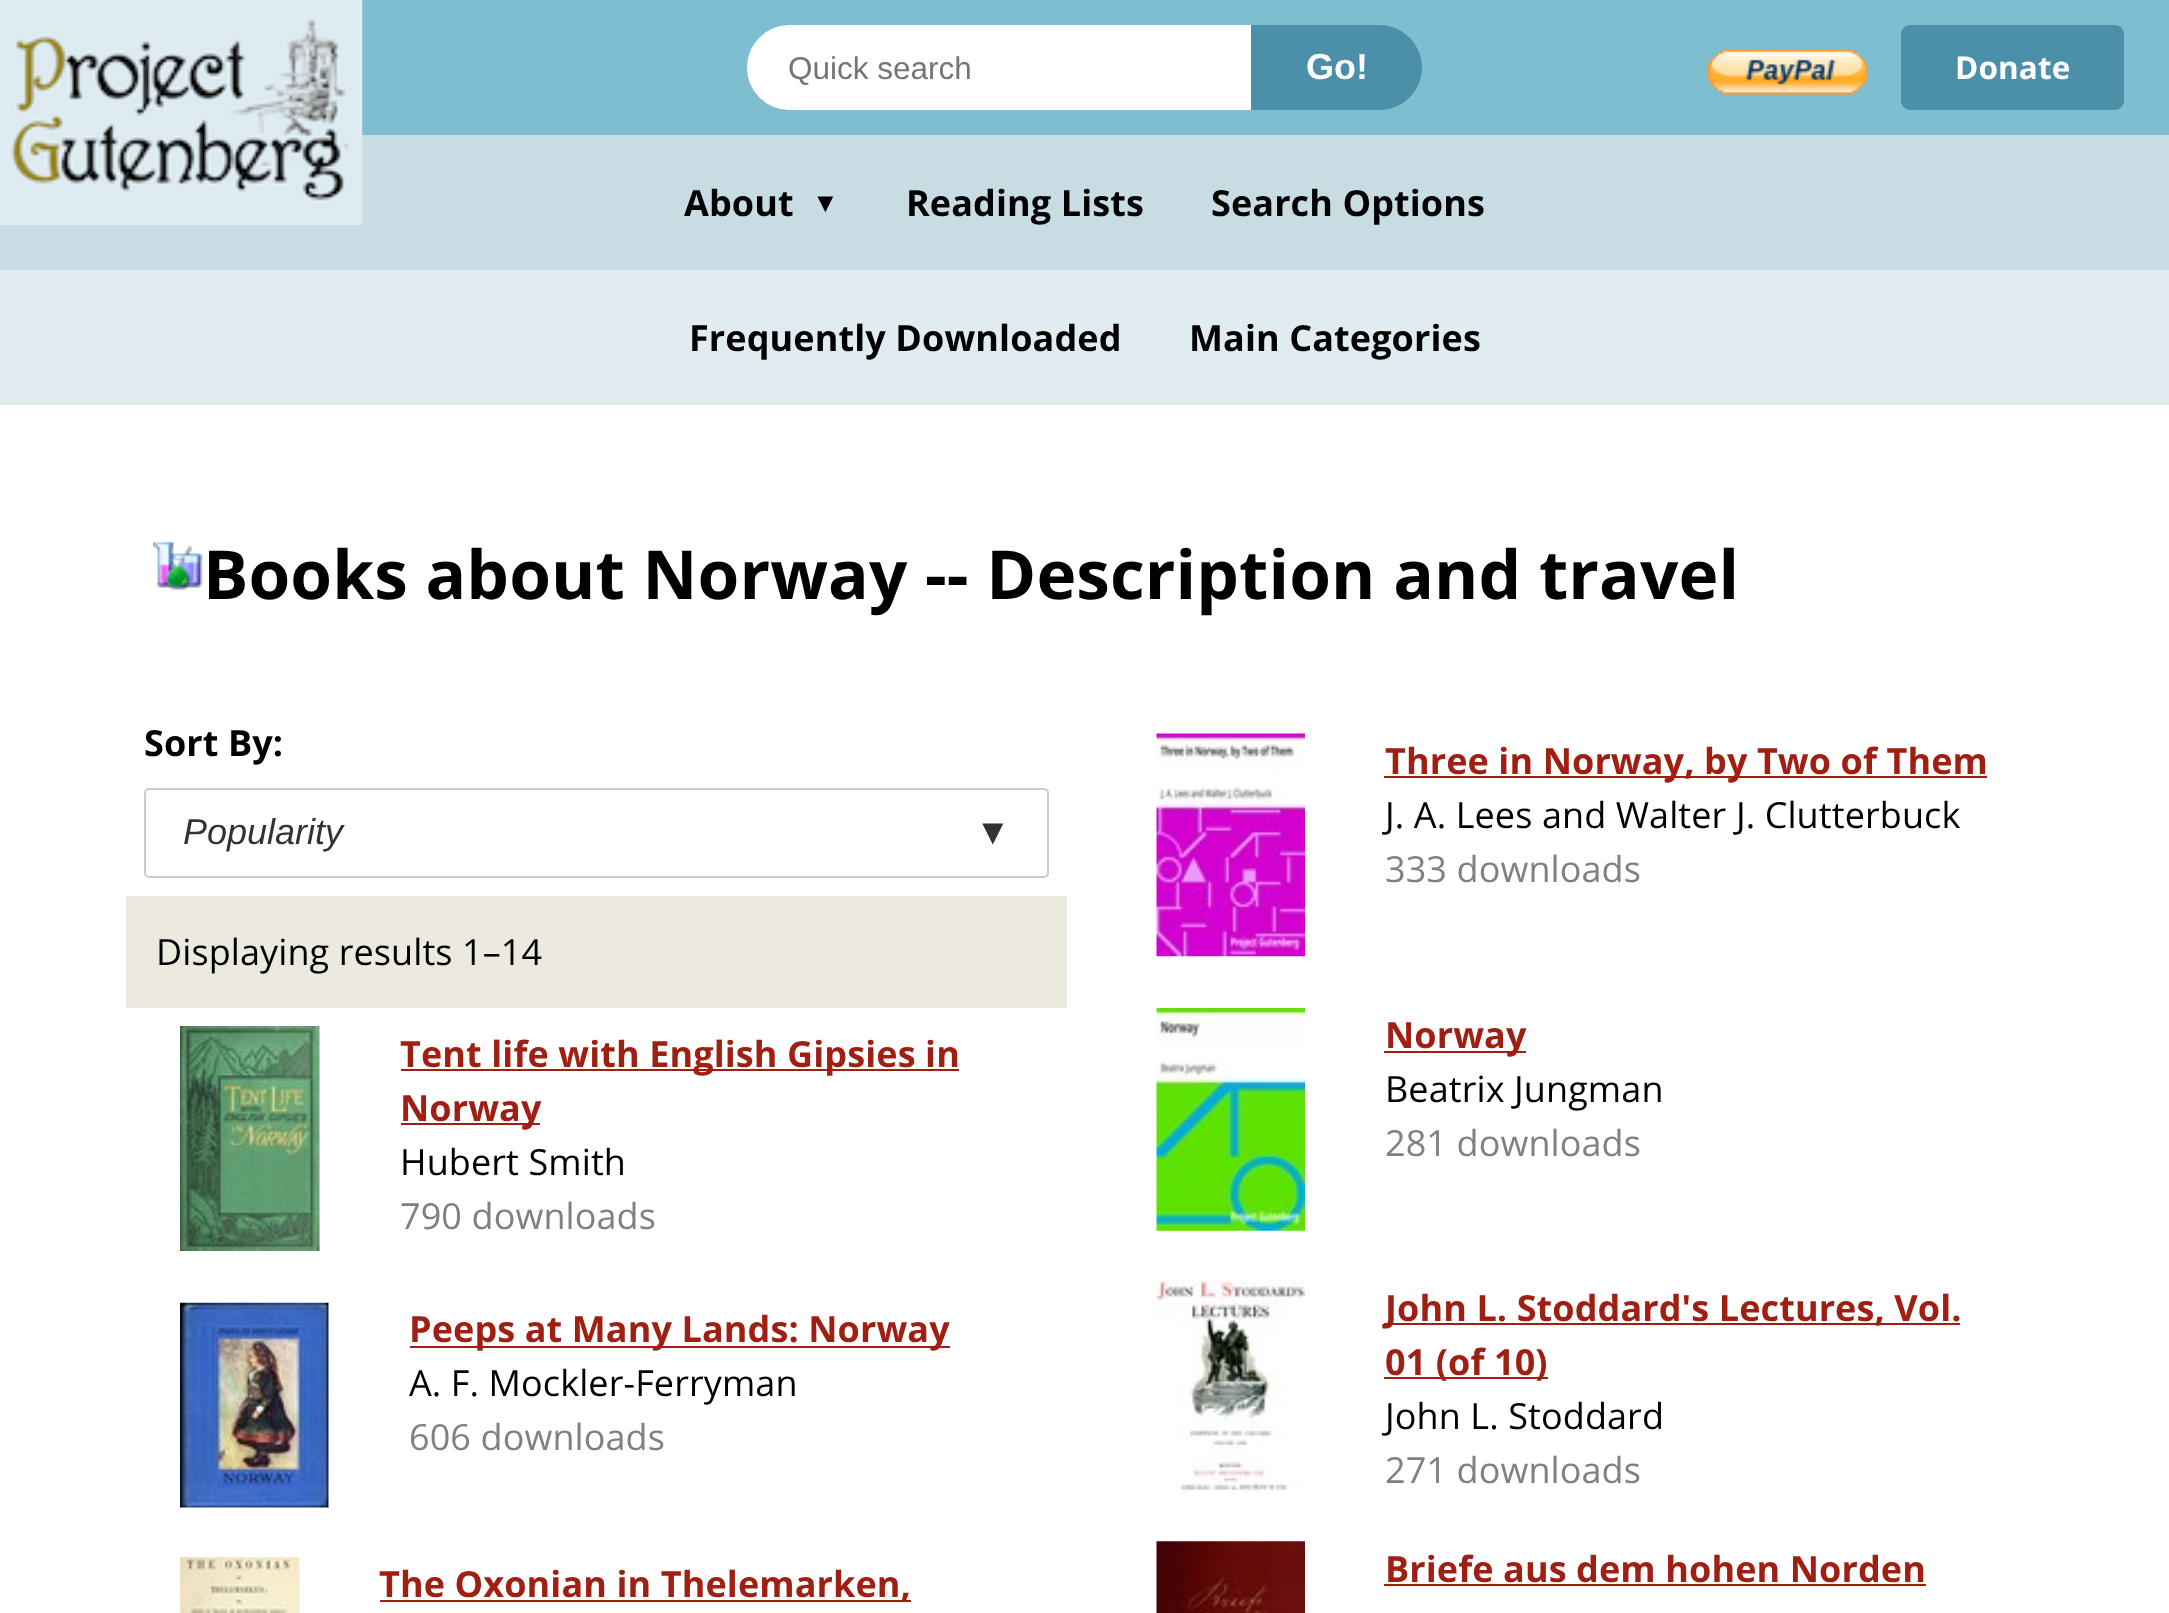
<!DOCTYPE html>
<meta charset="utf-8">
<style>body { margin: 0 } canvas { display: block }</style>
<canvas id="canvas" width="2169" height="1613"></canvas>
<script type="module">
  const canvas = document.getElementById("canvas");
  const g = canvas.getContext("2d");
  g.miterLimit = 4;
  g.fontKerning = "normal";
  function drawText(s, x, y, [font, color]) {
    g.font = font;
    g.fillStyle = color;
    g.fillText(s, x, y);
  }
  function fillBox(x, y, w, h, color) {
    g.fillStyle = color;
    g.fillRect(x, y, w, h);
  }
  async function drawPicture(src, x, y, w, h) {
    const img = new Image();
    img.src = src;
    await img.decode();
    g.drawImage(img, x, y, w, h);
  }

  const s1 = ["31.5px Liberation Sans", "#757575"];
  const s2 = ["bold 36px Liberation Sans", "#FFFFFF"];
  const s3 = ["bold 31.5px Open Sans", "#FFFFFF"];
  const s4 = ["bold 36px Open Sans", "#000000"];
  const s5 = ["bold 27px Liberation Sans", "#000000"];
  const s6 = ["bold 67.5px Open Sans", "#000000"];
  const s7 = ["bold 36px Open Sans", "#A01F13"];
  const s8 = ["36px Open Sans", "#000000"];
  const s9 = ["36px Open Sans", "#808080"];
  const s10 = ["italic 36px Liberation Sans", "#333333"];

  fillBox(0, 0, 2169, 1613, "#FFFFFF");
  fillBox(362, 0, 1807, 135, "#7EBED0");
  fillBox(0, 135, 2169, 135, "#C7DDE3");
  await drawPicture("pic1.png", 0, 0, 363, 225);
  g.fillStyle = "#FFFFFF";
  g.beginPath();
  g.roundRect(749.5, 27.5, 499, 80, [40, 0, 0, 40]);
  g.fill();
  g.strokeStyle = "#FFFFFF";
  g.lineWidth = 5;
  g.stroke();
  drawText("Quick search", 788, 79, s1);
  g.fillStyle = "#4C8FA8";
  g.beginPath();
  g.roundRect(1251, 25, 171, 85, [0, 42.5, 42.5, 0]);
  g.fill();
  drawText("Go!", 1306, 79, s2);
  await drawPicture("pic2.png", 1707, 49, 161, 46);
  g.fillStyle = "#4C8FA8";
  g.beginPath();
  g.roundRect(1903.5, 27.5, 218, 80, 6.5);
  g.fill();
  g.strokeStyle = "#4C8FA8";
  g.stroke();
  g.letterSpacing = "0.1px";
  drawText("Donate", 1955, 79, s3);
  drawText("About", 684, 216, s4);
  drawText("▼", 812, 212, s5);
  drawText("Reading Lists", 906, 216, s4);
  drawText("Search Options", 1211, 216, s4);
  fillBox(0, 270, 2169, 135, "#E0ECF0");
  drawText("Frequently Downloaded", 689, 351, s4);
  drawText("Main Categories", 1189, 351, s4);
  await drawPicture("pic3.png", 153, 541, 50, 49);
  drawText("Books about Norway -- Description and travel", 203, 599, s6);
  drawText("Sort By:", 144, 756, s4);
  await drawPicture("pic4.png", 1156, 733, 149, 224);
  fillBox(1384, 776, 603, 2, "#A01F13");
  drawText("Three in Norway, by Two of Them", 1385, 774, s7);
  drawText("J. A. Lees and Walter J. Clutterbuck", 1385, 828, s8);
  drawText("333 downloads", 1385, 882, s9);
  g.beginPath();
  g.roundRect(145, 789, 903, 88, 4);
  g.strokeStyle = "#CCCCCC";
  g.lineWidth = 2;
  g.stroke();
  g.letterSpacing = "0px";
  drawText("Popularity", 183, 844, s10);
  drawText("▼", 975, 844, s10);
  fillBox(126, 896, 941, 112, "#ECEADF");
  g.letterSpacing = "0.1px";
  drawText("Displaying results 1–14", 156, 965, s8);
  await drawPicture("pic5.png", 180, 1026, 140, 225);
  fillBox(401, 1069, 558, 2, "#A01F13");
  drawText("Tent life with English Gipsies in", 400, 1067, s7);
  fillBox(401, 1123, 139, 2, "#A01F13");
  drawText("Norway", 400, 1121, s7);
  drawText("Hubert Smith", 400, 1175, s8);
  drawText("790 downloads", 400, 1229, s9);
  await drawPicture("pic6.png", 1156, 1008, 149, 223);
  fillBox(1384, 1051, 142, 2, "#A01F13");
  drawText("Norway", 1385, 1048, s7);
  drawText("Beatrix Jungman", 1385, 1102, s8);
  drawText("281 downloads", 1385, 1156, s9);
  await drawPicture("pic7.png", 180, 1302, 149, 206);
  fillBox(410, 1346, 540, 2, "#A01F13");
  drawText("Peeps at Many Lands: Norway", 409, 1342, s7);
  drawText("A. F. Mockler-Ferryman", 409, 1396, s8);
  drawText("606 downloads", 409, 1450, s9);
  await drawPicture("pic8.png", 1156, 1280, 149, 212);
  fillBox(1384, 1323, 576, 2, "#A01F13");
  drawText("John L. Stoddard's Lectures, Vol.", 1385, 1321, s7);
  fillBox(1384, 1377, 164, 2, "#A01F13");
  drawText("01 (of 10)", 1385, 1375, s7);
  drawText("John L. Stoddard", 1385, 1429, s8);
  drawText("271 downloads", 1385, 1483, s9);
  await drawPicture("pic9.png", 180, 1557, 120, 56);
  fillBox(380, 1600, 531, 2, "#A01F13");
  drawText("The Oxonian in Thelemarken,", 379, 1597, s7);
  await drawPicture("pic10.png", 1156, 1541, 149, 72);
  drawText("Briefe aus dem hohen Norden", 1385, 1582, s7);
  fillBox(1384, 1584, 542, 2, "#A01F13");
</script>
